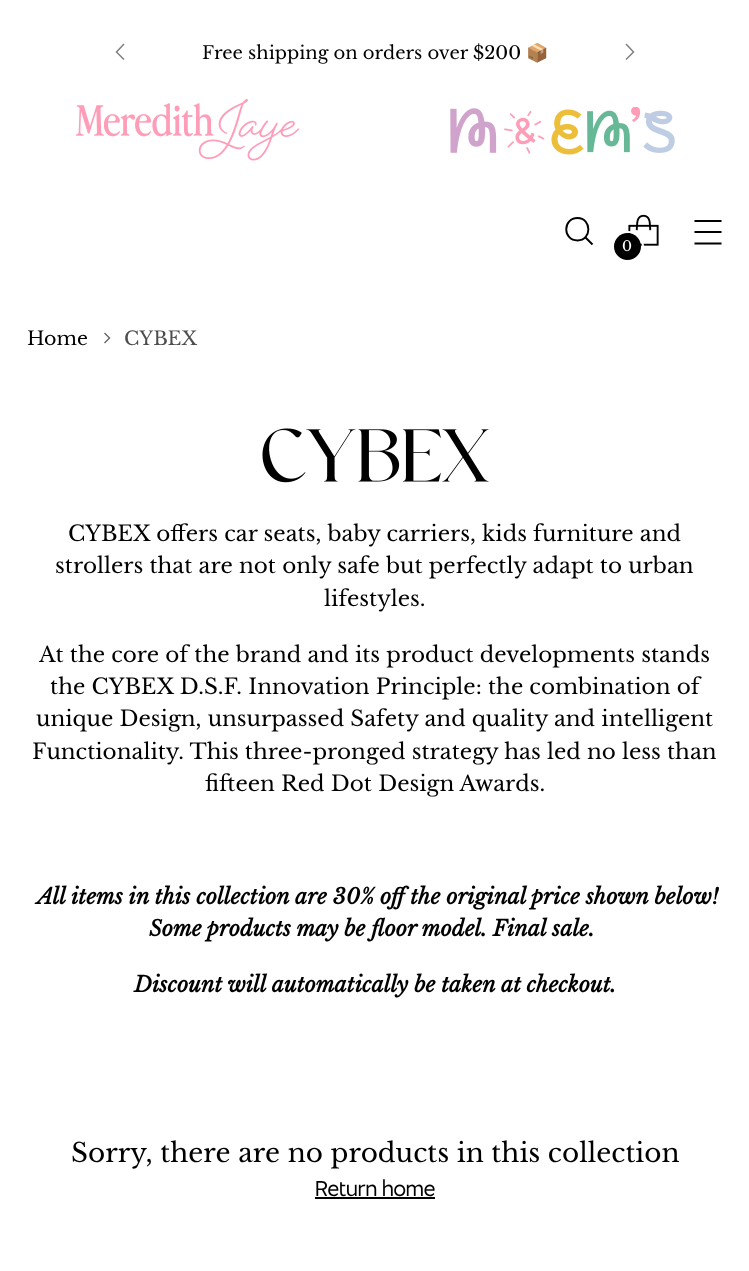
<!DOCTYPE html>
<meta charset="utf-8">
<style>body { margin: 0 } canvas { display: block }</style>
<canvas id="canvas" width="749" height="1271"></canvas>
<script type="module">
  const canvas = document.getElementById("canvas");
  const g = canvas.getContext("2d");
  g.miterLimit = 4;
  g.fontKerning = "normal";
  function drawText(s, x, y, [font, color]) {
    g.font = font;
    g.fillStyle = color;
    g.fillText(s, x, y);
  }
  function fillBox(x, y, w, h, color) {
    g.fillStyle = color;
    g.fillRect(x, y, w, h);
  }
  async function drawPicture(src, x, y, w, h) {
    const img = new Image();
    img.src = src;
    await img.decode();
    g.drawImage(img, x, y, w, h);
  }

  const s1 = ["18px Libre Baskerville", "#000000"];
  const s2 = ["18px Noto Color Emoji", "#000000"];
  const s3 = ["14px Libre Baskerville", "#FFFFFF"];
  const s4 = ["19px Libre Baskerville", "#000000"];
  const s5 = ["19px Libre Baskerville", "#4D4D4D"];
  const s6 = ["21.5px Libre Baskerville", "#000000"];
  const s7 = ["italic bold 21.5px Libre Baskerville", "#000000"];
  const s8 = ["26.3px Libre Baskerville", "#000000"];
  const s9 = ["500 21.5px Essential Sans", "#000000"];

  fillBox(0, 0, 749, 1271, "#FFFFFF");
  drawText("Free shipping on orders over $200", 202, 59, s1);
  drawText("📦", 526, 59, s2);
  g.beginPath();
  g.moveTo(124, 44);
  g.lineTo(116.5, 52);
  g.lineTo(124, 59.5);
  g.strokeStyle = "#808080";
  g.lineWidth = 1.5;
  g.stroke();
  g.beginPath();
  g.moveTo(626, 59.5);
  g.lineTo(633.5, 52);
  g.lineTo(626, 44);
  g.stroke();
  await drawPicture("pic1.png", 76, 99, 223, 62);
  await drawPicture("pic2.png", 450, 107, 225, 48);
  g.beginPath();
  g.moveTo(577.5, 240.5);
  g.bezierCurveTo(592, 240.5, 592, 218, 577.5, 218);
  g.bezierCurveTo(562.5, 218, 562.5, 240.5, 577.5, 240.5);
  g.closePath();
  g.strokeStyle = "#000000";
  g.lineWidth = 1.9;
  g.lineCap = "round";
  g.stroke();
  g.beginPath();
  g.moveTo(585.5, 237.5);
  g.lineTo(592.5, 244.5);
  g.lineCap = "butt";
  g.stroke();
  await drawPicture("pic3.png", 628, 214, 31, 32);
  g.beginPath();
  g.arc(628, 247, 15, 0, Math.PI * 2);
  g.strokeStyle = "#FFFFFF";
  g.lineWidth = 2;
  g.stroke();
  g.beginPath();
  g.arc(627.5, 246.5, 13.5, 0, Math.PI * 2);
  g.fill();
  drawText("0", 622, 251, s3);
  g.beginPath();
  g.moveTo(694.5, 232);
  g.lineTo(721.5, 232);
  g.moveTo(694.5, 221);
  g.lineTo(721.5, 221);
  g.moveTo(694.5, 243.5);
  g.lineTo(721.5, 243.5);
  g.strokeStyle = "#000000";
  g.lineWidth = 1.9;
  g.stroke();
  drawText("Home", 27, 345, s4);
  g.beginPath();
  g.moveTo(104.5, 343);
  g.lineTo(109.5, 338);
  g.lineTo(104.5, 333);
  g.strokeStyle = "#666666";
  g.lineWidth = 1.4;
  g.stroke();
  drawText("CYBEX", 124, 345, s5);
  await drawPicture("pic4.png", 262, 428, 227, 55);
  drawText("CYBEX offers car seats, baby carriers, kids furniture and", 68, 541, s6);
  drawText("strollers that are not only safe but perfectly adapt to urban", 55, 573, s6);
  drawText("lifestyles.", 324, 606, s6);
  drawText("At the core of the brand and its product developments stands", 39, 662, s6);
  drawText("the CYBEX D.S.F. Innovation Principle: the combination of", 50, 694, s6);
  drawText("unique Design, unsurpassed Safety and quality and intelligent", 36, 726, s6);
  drawText("Functionality. This three-pronged strategy has led no less than", 32, 759, s6);
  drawText("fifteen Red Dot Design Awards.", 205, 791, s6);
  drawText("All items in this collection are 30% off the original price shown below!", 37, 904, s7);
  drawText("Some products may be floor model. Final sale.", 149, 936, s7);
  drawText("Discount will automatically be taken at checkout.", 134, 992, s7);
  drawText("Sorry, there are no products in this collection", 71, 1162, s8);
  drawText("Return home", 315, 1196, s9);
  fillBox(315, 1197, 120, 2, "#000000");
</script>
